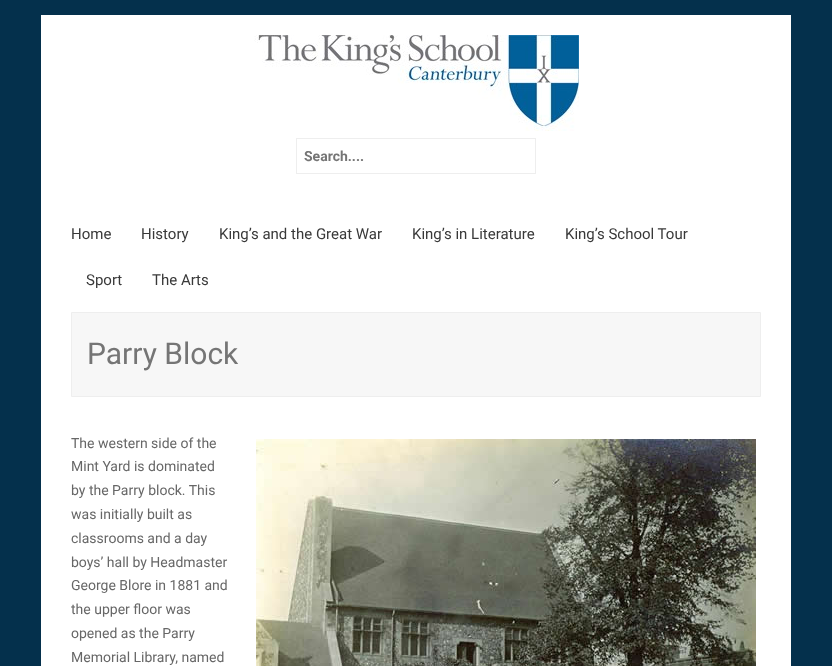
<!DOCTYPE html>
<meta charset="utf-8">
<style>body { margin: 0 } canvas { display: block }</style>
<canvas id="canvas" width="832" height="666"></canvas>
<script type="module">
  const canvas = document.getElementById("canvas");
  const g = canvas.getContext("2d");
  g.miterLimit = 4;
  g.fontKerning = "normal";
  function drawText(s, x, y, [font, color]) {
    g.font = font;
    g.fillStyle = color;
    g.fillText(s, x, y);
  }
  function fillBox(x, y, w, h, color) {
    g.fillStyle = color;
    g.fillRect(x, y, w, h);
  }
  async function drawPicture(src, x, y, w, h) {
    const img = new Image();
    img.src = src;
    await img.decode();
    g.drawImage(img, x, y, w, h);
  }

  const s1 = ["bold 14px Roboto", "#757575"];
  const s2 = ["15px Roboto", "#393939"];
  const s3 = ["30px Roboto", "#757575"];
  const s4 = ["14px Roboto", "#676767"];

  fillBox(0, 0, 832, 666, "#04304C");
  fillBox(41, 15, 750, 651, "#FFFFFF");
  await drawPicture("pic1.png", 254, 35, 325, 96);
  g.strokeStyle = "#EEEEEE";
  g.strokeRect(296.5, 138.5, 239, 35);
  drawText("Search....", 304, 161, s1);
  drawText("Home", 71, 239, s2);
  drawText("History", 141, 239, s2);
  drawText("King’s and the Great War", 219, 239, s2);
  drawText("King’s in Literature", 412, 239, s2);
  drawText("King’s School Tour", 565, 239, s2);
  drawText("Sport", 86, 285, s2);
  drawText("The Arts", 152, 285, s2);
  g.fillStyle = "#F7F7F7";
  g.beginPath();
  g.rect(71.5, 312.5, 689, 84);
  g.fill();
  g.stroke();
  drawText("Parry Block", 87, 364, s3);
  drawText("The western side of the", 71, 448, s4);
  drawText("Mint Yard is dominated", 71, 471, s4);
  drawText("by the Parry block. This", 71, 495, s4);
  drawText("was initially built as", 71, 519, s4);
  drawText("classrooms and a day", 71, 543, s4);
  drawText("boys’ hall by Headmaster", 71, 567, s4);
  drawText("George Blore in 1881 and", 71, 590, s4);
  drawText("the upper floor was", 71, 614, s4);
  drawText("opened as the Parry", 71, 638, s4);
  drawText("Memorial Library, named", 71, 662, s4);
  await drawPicture("pic2.png", 256, 439, 500, 227);
</script>
